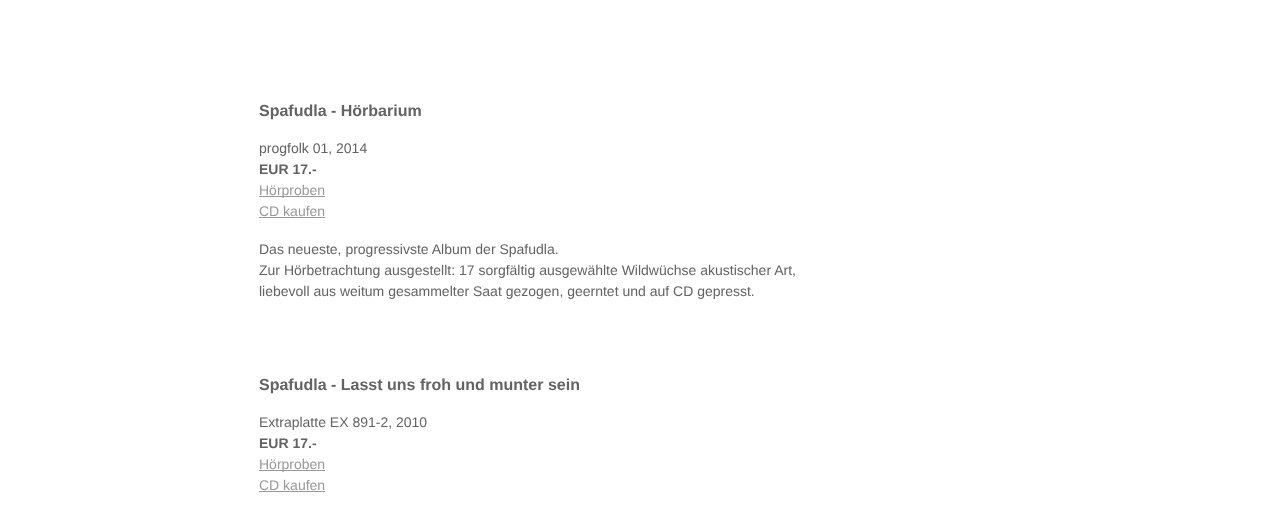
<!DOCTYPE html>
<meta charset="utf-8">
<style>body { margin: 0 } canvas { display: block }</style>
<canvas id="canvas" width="1265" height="522"></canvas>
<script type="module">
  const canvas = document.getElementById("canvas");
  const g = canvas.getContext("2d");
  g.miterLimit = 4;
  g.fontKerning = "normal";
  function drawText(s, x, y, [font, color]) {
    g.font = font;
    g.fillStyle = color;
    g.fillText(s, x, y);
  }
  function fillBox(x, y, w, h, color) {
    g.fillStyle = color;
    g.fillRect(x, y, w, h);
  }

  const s1 = ["bold 16px Liberation Sans", "#636363"];
  const s2 = ["14px Liberation Sans", "#636363"];
  const s3 = ["bold 14px Liberation Sans", "#636363"];
  const s4 = ["14px Liberation Sans", "#999999"];

  fillBox(0, 0, 1265, 522, "#FFFFFF");
  drawText("Spafudla - Hörbarium", 259, 116, s1);
  drawText("progfolk 01, 2014", 259, 153, s2);
  drawText("EUR 17.-", 259, 174, s3);
  fillBox(259, 196, 66, 1, "#999999");
  drawText("Hörproben", 259, 195, s4);
  drawText("CD kaufen", 259, 216, s4);
  fillBox(259, 217, 66, 1, "#999999");
  drawText("Das neueste, progressivste Album der Spafudla.", 259, 254, s2);
  drawText("Zur Hörbetrachtung ausgestellt: 17 sorgfältig ausgewählte Wildwüchse akustischer Art,", 259, 275, s2);
  drawText("liebevoll aus weitum gesammelter Saat gezogen, geerntet und auf CD gepresst.", 259, 296, s2);
  drawText("Spafudla - Lasst uns froh und munter sein", 259, 390, s1);
  drawText("Extraplatte EX 891-2, 2010", 259, 427, s2);
  drawText("EUR 17.-", 259, 448, s3);
  fillBox(259, 470, 66, 1, "#999999");
  drawText("Hörproben", 259, 469, s4);
  drawText("CD kaufen", 259, 490, s4);
  fillBox(259, 491, 66, 1, "#999999");
</script>
